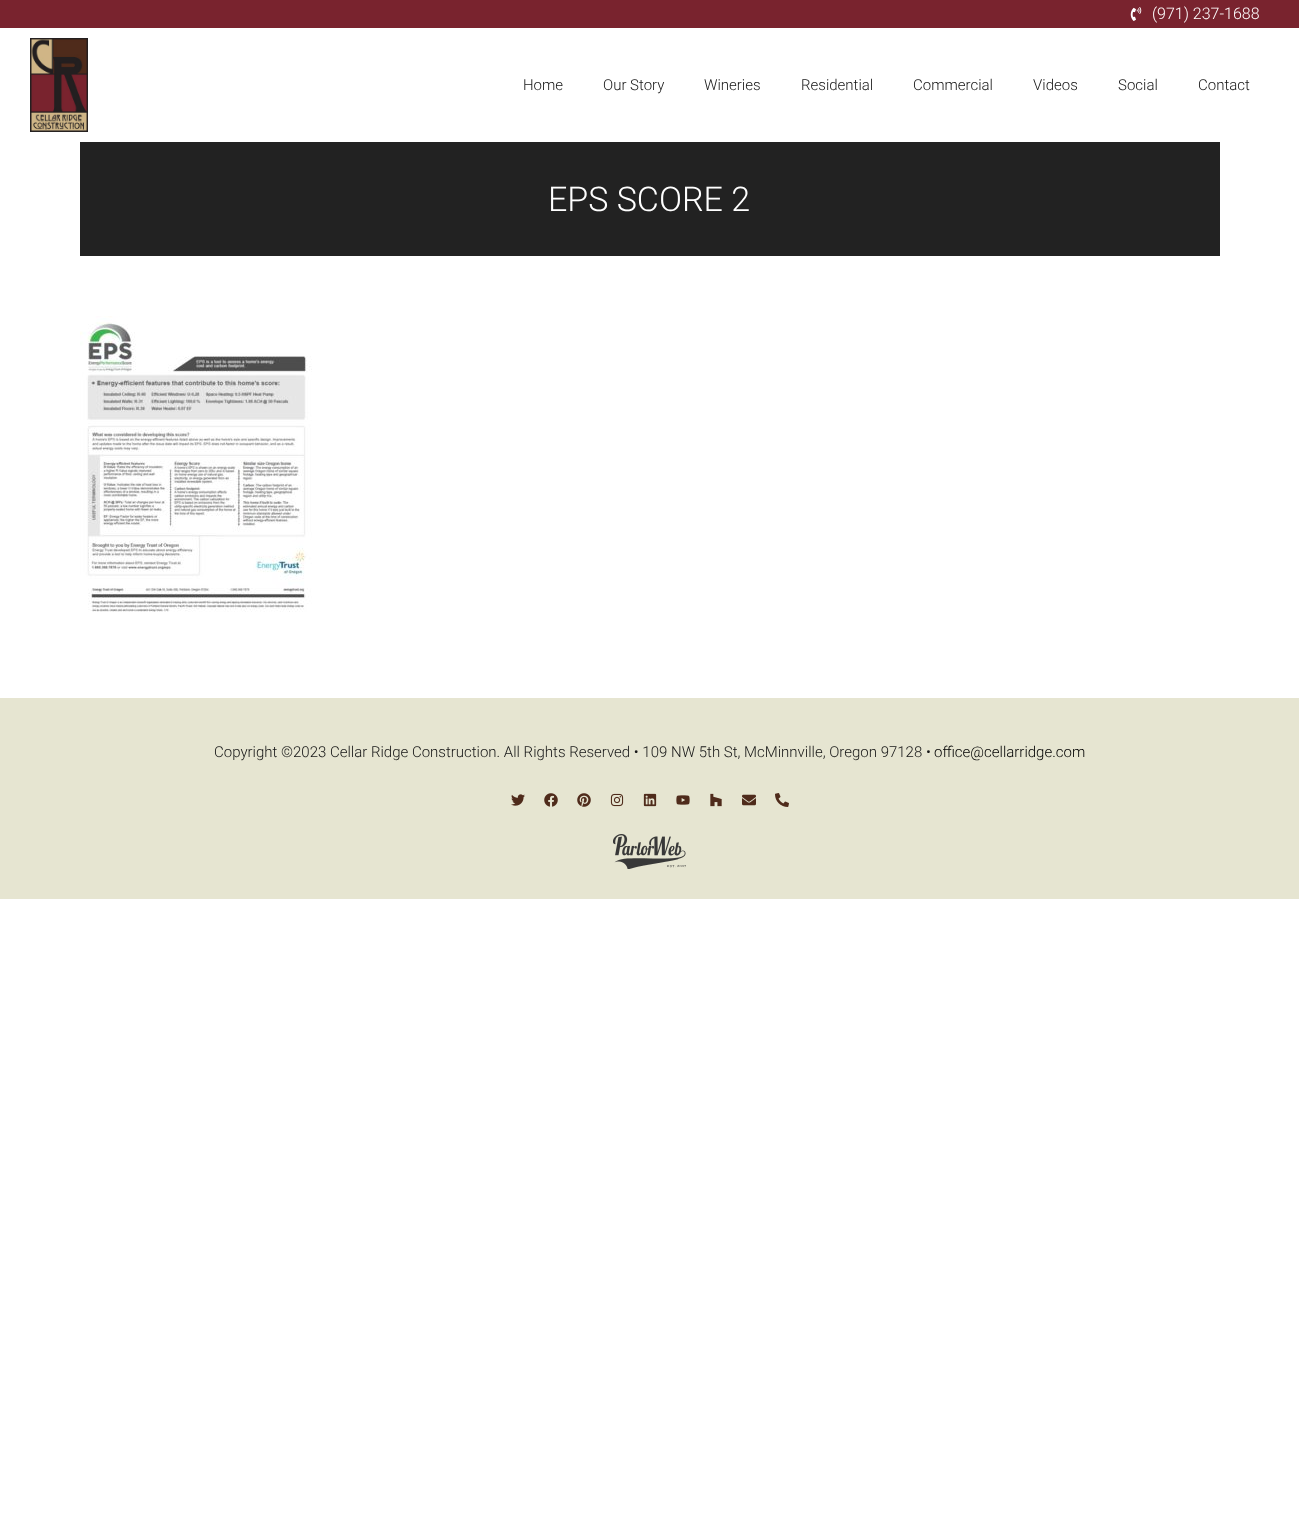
<!DOCTYPE html>
<meta charset="utf-8">
<style>body { margin: 0 } canvas { display: block }</style>
<canvas id="canvas" width="1299" height="1534"></canvas>
<script type="module">
  const canvas = document.getElementById("canvas");
  const g = canvas.getContext("2d");
  g.miterLimit = 4;
  g.fontKerning = "normal";
  function drawText(s, x, y, [font, color]) {
    g.font = font;
    g.fillStyle = color;
    g.fillText(s, x, y);
  }
  function fillBox(x, y, w, h, color) {
    g.fillStyle = color;
    g.fillRect(x, y, w, h);
  }
  async function drawPicture(src, x, y, w, h) {
    const img = new Image();
    img.src = src;
    await img.decode();
    g.drawImage(img, x, y, w, h);
  }

  const s1 = ["300 16px Roboto", "#FFFFFF"];
  const s2 = ["300 15px Roboto", "#161616"];
  const s3 = ["300 34px Roboto", "#FFFFFF"];
  const s4 = ["300 15px Roboto", "#000000"];

  fillBox(0, 0, 1299, 1534, "#FFFFFF");
  fillBox(0, 0, 1299, 28, "#79232E");
  await drawPicture("pic1.png", 1130, 7, 12, 14);
  drawText("(971) 237-1688", 1152, 19, s1);
  await drawPicture("pic2.png", 30, 38, 58, 94);
  drawText("Home", 523, 90, s2);
  drawText("Our Story", 603, 90, s2);
  drawText("Wineries", 704, 90, s2);
  drawText("Residential", 801, 90, s2);
  drawText("Commercial", 913, 90, s2);
  drawText("Videos", 1033, 90, s2);
  drawText("Social", 1118, 90, s2);
  drawText("Contact", 1198, 90, s2);
  fillBox(80, 142, 1140, 114, "#222222");
  drawText("EPS SCORE 2", 548, 211, s3);
  await drawPicture("pic3.png", 80, 316, 232, 296);
  fillBox(0, 698, 1299, 201, "#E6E5D1");
  drawText("Copyright ©2023 Cellar Ridge Construction. All Rights Reserved • 109 NW 5th St, McMinnville, Oregon 97128 •", 214, 757, s2);
  drawText("office@cellarridge.com", 934, 757, s4);
  await drawPicture("pic4.png", 511, 794, 14, 12);
  await drawPicture("pic5.png", 544, 793, 14, 14);
  await drawPicture("pic6.png", 577, 793, 14, 14);
  await drawPicture("pic7.png", 610, 793, 14, 14);
  await drawPicture("pic8.png", 643, 793, 14, 14);
  await drawPicture("pic9.png", 676, 795, 14, 10);
  await drawPicture("pic10.png", 710, 793, 12, 14);
  await drawPicture("pic11.png", 742, 794, 14, 12);
  await drawPicture("pic12.png", 775, 793, 14, 14);
  await drawPicture("pic13.png", 613, 834, 73, 35);
</script>
